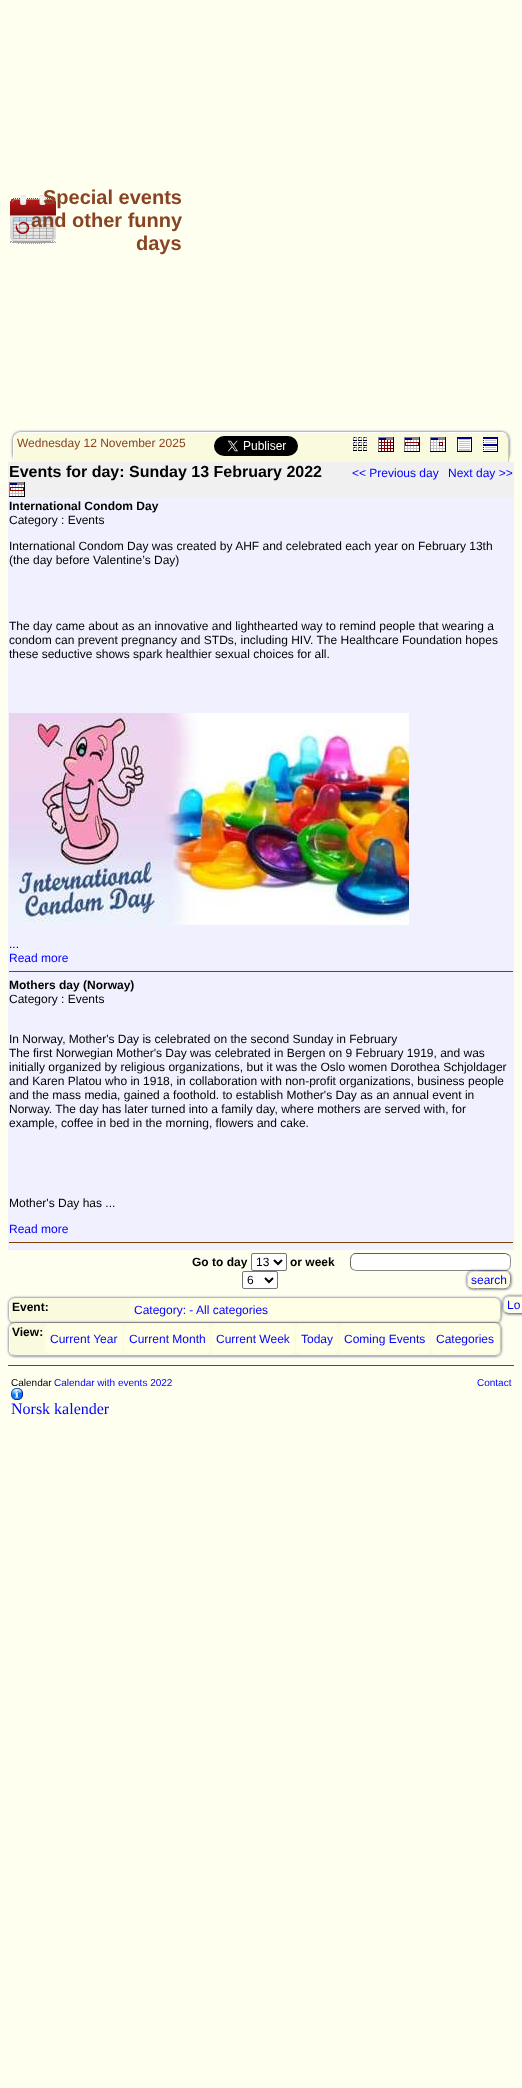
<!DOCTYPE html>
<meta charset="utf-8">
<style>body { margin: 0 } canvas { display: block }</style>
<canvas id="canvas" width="522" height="2088"></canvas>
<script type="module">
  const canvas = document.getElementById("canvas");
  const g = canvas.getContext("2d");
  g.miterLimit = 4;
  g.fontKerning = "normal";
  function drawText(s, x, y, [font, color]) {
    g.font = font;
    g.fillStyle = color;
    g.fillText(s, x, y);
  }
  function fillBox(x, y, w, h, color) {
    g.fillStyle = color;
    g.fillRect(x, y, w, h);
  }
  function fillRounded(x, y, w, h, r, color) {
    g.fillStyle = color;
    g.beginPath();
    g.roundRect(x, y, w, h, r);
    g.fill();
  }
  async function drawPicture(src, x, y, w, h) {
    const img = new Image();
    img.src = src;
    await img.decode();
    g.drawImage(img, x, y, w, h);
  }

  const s1 = ["bold 20px Liberation Sans", "#884422"];
  const s2 = ["12px Liberation Sans", "#884422"];
  const s3 = ["bold 16px Liberation Sans", "#000000"];
  const s4 = ["12px Liberation Sans", "#0000FF"];
  const s5 = ["bold 12px Liberation Sans", "#000000"];
  const s6 = ["12px Liberation Sans", "#000000"];
  const s7 = ["10px Liberation Sans", "#000000"];
  const s8 = ["10px Liberation Sans", "#0000FF"];
  const s9 = ["16px Liberation Serif", "#0000FF"];

  fillBox(0, 0, 522, 2088, "#FFFFF0");
  await drawPicture("pic1.png", 10, 195, 46, 49);
  drawText("Special events", 43, 204, s1);
  drawText("and other funny", 31, 227, s1);
  drawText("days", 136, 250, s1);
  g.fillStyle = "rgba(2, 2, 92, 0.75)";
  g.filter = "blur(1.5px)";
  g.beginPath();
  g.roundRect(13, 432, 496, 30, 8);
  g.fill();
  g.filter = "none";
  g.fillStyle = "#FAFADE";
  g.beginPath();
  g.roundRect(13, 432, 496, 30, [8, 8, 0, 0]);
  g.fill();
  g.fillStyle = "#FFFFFF";
  g.beginPath();
  g.moveTo(21, 432);
  g.bezierCurveTo(19, 432, 17, 433, 16, 434);
  g.lineTo(16, 435);
  g.bezierCurveTo(17, 434, 19, 433, 21, 433);
  g.lineTo(501, 433);
  g.bezierCurveTo(503, 433, 505, 434, 506, 435);
  g.lineTo(506, 434);
  g.bezierCurveTo(505, 433, 503, 432, 501, 432);
  g.closePath();
  g.fill();
  g.fillStyle = "#CACAAE";
  g.beginPath();
  g.moveTo(508, 462);
  g.lineTo(509, 462);
  g.lineTo(509, 440);
  g.bezierCurveTo(509, 438, 508, 436, 506.5, 434.5);
  g.lineTo(506, 435);
  g.bezierCurveTo(507, 436, 508, 438, 508, 440);
  g.closePath();
  g.fill();
  g.fillStyle = "#FFFFFF";
  g.beginPath();
  g.moveTo(13, 462);
  g.lineTo(14, 462);
  g.lineTo(14, 440);
  g.bezierCurveTo(14, 438, 15, 436, 16, 435);
  g.lineTo(15.5, 434.5);
  g.bezierCurveTo(14, 436, 13, 438, 13, 440);
  g.closePath();
  g.fill();
  drawText("Wednesday 12 November 2025", 17, 447, s2);
  await drawPicture("pic2.png", 214, 436, 84, 20);
  await drawPicture("pic3.png", 353, 437, 14, 14);
  await drawPicture("pic4.png", 378, 437, 16, 15);
  await drawPicture("pic5.png", 404, 437, 16, 15);
  await drawPicture("pic6.png", 430, 437, 16, 15);
  await drawPicture("pic7.png", 457, 437, 15, 15);
  await drawPicture("pic8.png", 483, 437, 15, 15);
  fillBox(8, 462, 506, 36, "#F0F0F0");
  drawText("Events for day: Sunday 13 February 2022", 9, 477, s3);
  await drawPicture("pic5.png", 9, 482, 16, 15);
  drawText("<< Previous day", 352, 477, s4);
  drawText("Next day >>", 448, 477, s4);
  fillBox(8, 498, 506, 752, "#F0F0FF");
  drawText("International Condom Day", 9, 510, s5);
  drawText("Category : Events", 9, 524, s6);
  drawText("International Condom Day was created by AHF and celebrated each year on February 13th", 9, 550, s6);
  drawText("(the day before Valentine’s Day)", 9, 564, s6);
  drawText("The day came about as an innovative and lighthearted way to remind people that wearing a", 9, 630, s6);
  drawText("condom can prevent pregnancy and STDs, including HIV. The Healthcare Foundation hopes", 9, 644, s6);
  drawText("these seductive shows spark healthier sexual choices for all.", 9, 658, s6);
  await drawPicture("pic9.png", 9, 713, 400, 212);
  drawText("...", 9, 948, s6);
  drawText("Read more", 9, 962, s4);
  fillBox(9, 971, 504, 1, "#804000");
  drawText("Mothers day (Norway)", 9, 989, s5);
  drawText("Category : Events", 9, 1003, s6);
  drawText("In Norway, Mother's Day is celebrated on the second Sunday in February", 9, 1043, s6);
  drawText("The first Norwegian Mother's Day was celebrated in Bergen on 9 February 1919, and was", 9, 1057, s6);
  drawText("initially organized by religious organizations, but it was the Oslo women Dorothea Schjoldager", 9, 1071, s6);
  drawText("and Karen Platou who in 1918, in collaboration with non-profit organizations, business people", 9, 1085, s6);
  drawText("and the mass media, gained a foothold. to establish Mother's Day as an annual event in", 9, 1099, s6);
  drawText("Norway. The day has later turned into a family day, where mothers are served with, for", 9, 1113, s6);
  drawText("example, coffee in bed in the morning, flowers and cake.", 9, 1127, s6);
  drawText("Mother's Day has ...", 9, 1207, s6);
  drawText("Read more", 9, 1233, s4);
  fillBox(9, 1242, 504, 1, "#804000");
  drawText("Go to day", 192, 1266, s5);
  g.fillStyle = "#FFFFFF";
  g.beginPath();
  g.roundRect(251.5, 1253.5, 35, 17, 1.5);
  g.fill();
  g.strokeStyle = "#767676";
  g.stroke();
  g.beginPath();
  g.moveTo(274, 1260);
  g.lineTo(278, 1264);
  g.lineTo(282, 1260);
  g.strokeStyle = "#000000";
  g.lineWidth = 2;
  g.stroke();
  drawText("13", 256, 1266, s6);
  drawText("or week", 290, 1266, s5);
  g.fillStyle = "#FFFFFF";
  g.beginPath();
  g.roundRect(242.5, 1271.5, 35, 17, 1.5);
  g.fill();
  g.strokeStyle = "#767676";
  g.lineWidth = 1;
  g.stroke();
  g.beginPath();
  g.moveTo(265, 1278);
  g.lineTo(269, 1282);
  g.lineTo(273, 1278);
  g.strokeStyle = "#000000";
  g.lineWidth = 2;
  g.stroke();
  drawText("6", 247, 1284, s6);
  fillRounded(350, 1253, 161, 18, 6, "#FFFFFF");
  g.beginPath();
  g.moveTo(509, 1255);
  g.bezierCurveTo(511, 1257, 510.5, 1259.5, 510.5, 1262);
  g.bezierCurveTo(510.5, 1265.5, 510.5, 1269.5, 506, 1270.5);
  g.lineTo(355.5, 1270.5);
  g.lineTo(352, 1269);
  g.strokeStyle = "#888888";
  g.lineWidth = 1;
  g.stroke();
  g.beginPath();
  g.moveTo(352, 1269);
  g.bezierCurveTo(350, 1267, 350.5, 1264.5, 350.5, 1262);
  g.bezierCurveTo(350.5, 1258.5, 350.5, 1254.5, 355, 1253.5);
  g.lineTo(505.5, 1253.5);
  g.lineTo(509, 1255);
  g.strokeStyle = "#5B5B5B";
  g.stroke();
  g.fillStyle = "rgba(2, 2, 92, 0.75)";
  g.filter = "blur(1.5px)";
  g.beginPath();
  g.roundRect(467, 1271, 44, 18, 6);
  g.fill();
  g.filter = "none";
  fillRounded(467, 1271, 44, 18, 6, "#FFFFE5");
  g.beginPath();
  g.moveTo(509, 1273);
  g.bezierCurveTo(511, 1275, 510.5, 1277.5, 510.5, 1280);
  g.bezierCurveTo(510.5, 1291, 504, 1288.5, 494.5, 1288.5);
  g.lineTo(478.5, 1288.5);
  g.bezierCurveTo(475.5, 1288.5, 471.5, 1289.5, 469, 1287);
  g.strokeStyle = "#888888";
  g.stroke();
  g.beginPath();
  g.moveTo(469, 1287);
  g.bezierCurveTo(467, 1285, 467.5, 1282.5, 467.5, 1280);
  g.bezierCurveTo(467.5, 1269, 474, 1271.5, 483.5, 1271.5);
  g.lineTo(499.5, 1271.5);
  g.bezierCurveTo(502.5, 1271.5, 506.5, 1270.5, 509, 1273);
  g.strokeStyle = "#CCCCCC";
  g.stroke();
  drawText("search", 471, 1284, s4);
  g.fillStyle = "rgba(2, 2, 92, 0.75)";
  g.filter = "blur(1.5px)";
  g.beginPath();
  g.roundRect(9, 1298, 492, 25, 6);
  g.fill();
  g.filter = "none";
  fillRounded(9, 1298, 492, 25, 6, "#FAFADE");
  g.fillStyle = "#CACAAE";
  g.beginPath();
  g.moveTo(501, 1304);
  g.bezierCurveTo(501, 1301, 498, 1298, 495, 1298);
  g.bezierCurveTo(501, 1298, 500, 1306.5, 500, 1310.5);
  g.bezierCurveTo(500, 1313.5, 501, 1318.5, 498.5, 1320.5);
  g.lineTo(499, 1321);
  g.bezierCurveTo(500, 1320, 501, 1318.5, 501, 1317);
  g.closePath();
  g.fill();
  g.fillStyle = "#BABA9E";
  g.beginPath();
  g.moveTo(15, 1323);
  g.lineTo(495, 1323);
  g.bezierCurveTo(496, 1323, 498, 1322, 499, 1321);
  g.bezierCurveTo(498, 1322, 496, 1322, 495, 1322);
  g.lineTo(15, 1322);
  g.bezierCurveTo(14, 1322, 12, 1322, 11, 1321);
  g.bezierCurveTo(12, 1322, 14, 1323, 15, 1323);
  g.closePath();
  g.fill();
  g.fillStyle = "#FFFFFF";
  g.beginPath();
  g.moveTo(9, 1304);
  g.lineTo(9, 1317);
  g.bezierCurveTo(9, 1318.5, 10, 1320, 11, 1321);
  g.lineTo(11.5, 1320.5);
  g.bezierCurveTo(9, 1318.5, 10, 1313.5, 10, 1310.5);
  g.bezierCurveTo(10, 1306.5, 9, 1298, 15, 1298);
  g.bezierCurveTo(12, 1298, 9, 1301, 9, 1304);
  g.closePath();
  g.fill();
  drawText("Event:", 12, 1311, s5);
  fillRounded(129, 1299, 370, 22, 6, "#FFFFE5");
  drawText("Category: - All categories", 134, 1314, s4);
  g.fillStyle = "rgba(2, 2, 92, 0.75)";
  g.filter = "blur(1.5px)";
  g.beginPath();
  g.roundRect(9, 1323, 492, 33, 6);
  g.fill();
  g.filter = "none";
  fillRounded(9, 1323, 492, 33, 6, "#FAFADE");
  g.fillStyle = "#CACAAE";
  g.beginPath();
  g.moveTo(501, 1329);
  g.bezierCurveTo(501, 1326, 498, 1323, 495, 1323);
  g.bezierCurveTo(498, 1323, 500, 1326, 500, 1329);
  g.lineTo(500, 1350);
  g.bezierCurveTo(500, 1351.5, 499.5, 1353, 498.5, 1353.5);
  g.lineTo(499, 1354);
  g.bezierCurveTo(500, 1353, 501, 1351.5, 501, 1350);
  g.closePath();
  g.fill();
  g.fillStyle = "#BABA9E";
  g.beginPath();
  g.moveTo(15, 1356);
  g.lineTo(495, 1356);
  g.bezierCurveTo(496, 1356, 498, 1355, 499, 1354);
  g.bezierCurveTo(498, 1354, 496, 1355, 495, 1355);
  g.lineTo(15, 1355);
  g.bezierCurveTo(14, 1355, 12, 1354, 11, 1354);
  g.bezierCurveTo(12, 1355, 14, 1356, 15, 1356);
  g.closePath();
  g.fill();
  g.fillStyle = "#FFFFFF";
  g.beginPath();
  g.moveTo(9, 1329);
  g.lineTo(9, 1350);
  g.bezierCurveTo(9, 1351.5, 10, 1353, 11, 1354);
  g.lineTo(11.5, 1353.5);
  g.bezierCurveTo(10.5, 1353, 10, 1351.5, 10, 1350);
  g.lineTo(10, 1329);
  g.bezierCurveTo(10, 1326, 12, 1323, 15, 1323);
  g.bezierCurveTo(12, 1323, 9, 1326, 9, 1329);
  g.closePath();
  g.fill();
  drawText("View:", 12, 1336, s5);
  fillRounded(45, 1324, 78, 30, 6, "#FFFFE5");
  drawText("Current Year", 50, 1343, s4);
  fillRounded(124, 1324, 86, 30, 6, "#FFFFE5");
  drawText("Current Month", 129, 1343, s4);
  fillRounded(211, 1324, 84, 30, 6, "#FFFFE5");
  drawText("Current Week", 216, 1343, s4);
  fillRounded(296, 1324, 42, 30, 6, "#FFFFE5");
  drawText("Today", 301, 1343, s4);
  fillRounded(339, 1324, 91, 30, 6, "#FFFFE5");
  drawText("Coming Events", 344, 1343, s4);
  fillRounded(431, 1324, 68, 30, 6, "#FFFFE5");
  drawText("Categories", 436, 1343, s4);
  g.fillStyle = "rgba(2, 2, 92, 0.75)";
  g.filter = "blur(1.5px)";
  g.beginPath();
  g.roundRect(503, 1296, 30, 18, 6);
  g.fill();
  g.filter = "none";
  fillRounded(503, 1296, 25, 18, 6, "#FFFFE5");
  g.beginPath();
  g.moveTo(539, 1298);
  g.bezierCurveTo(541, 1300, 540.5, 1302.5, 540.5, 1305);
  g.bezierCurveTo(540.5, 1313, 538.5, 1313.5, 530.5, 1313.5);
  g.lineTo(513.5, 1313.5);
  g.bezierCurveTo(510.5, 1313.5, 507.5, 1314, 505, 1312);
  g.strokeStyle = "#888888";
  g.stroke();
  g.beginPath();
  g.moveTo(505, 1312);
  g.bezierCurveTo(503, 1310, 503.5, 1307.5, 503.5, 1305);
  g.bezierCurveTo(503.5, 1297, 505.5, 1296.5, 513.5, 1296.5);
  g.lineTo(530.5, 1296.5);
  g.bezierCurveTo(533.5, 1296.5, 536.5, 1296, 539, 1298);
  g.strokeStyle = "#CCCCCC";
  g.stroke();
  drawText("Lo", 507, 1309, s4);
  fillBox(8, 1365, 506, 1, "#804000");
  drawText("Calendar", 11, 1386, s7);
  drawText("Calendar with events 2022", 54, 1386, s8);
  await drawPicture("pic10.png", 11, 1388, 12, 12);
  drawText("Norsk kalender", 11, 1414, s9);
  drawText("Contact", 477, 1386, s8);
</script>
